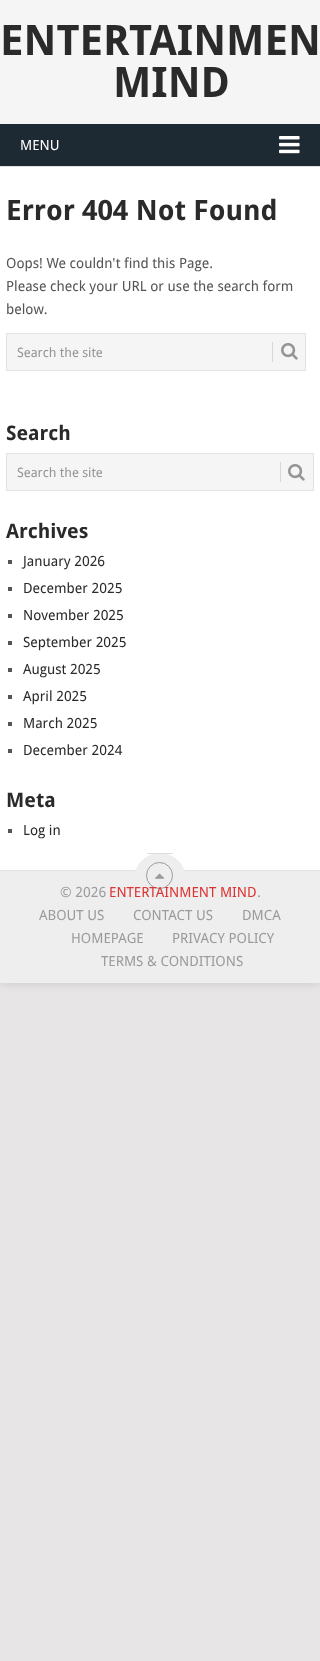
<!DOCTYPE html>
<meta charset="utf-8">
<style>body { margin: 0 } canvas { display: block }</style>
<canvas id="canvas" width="320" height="1661"></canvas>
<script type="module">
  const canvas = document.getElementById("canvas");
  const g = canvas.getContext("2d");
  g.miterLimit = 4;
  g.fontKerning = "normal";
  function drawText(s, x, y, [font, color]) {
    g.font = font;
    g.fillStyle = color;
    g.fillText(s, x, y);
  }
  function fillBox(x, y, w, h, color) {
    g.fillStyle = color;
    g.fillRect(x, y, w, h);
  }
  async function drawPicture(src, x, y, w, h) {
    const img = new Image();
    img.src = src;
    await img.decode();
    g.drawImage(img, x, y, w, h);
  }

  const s1 = ["bold 42px Droid Sans", "#2A2A2A"];
  const s2 = ["14px Droid Sans", "#FFFFFF"];
  const s3 = ["bold 28px Droid Sans", "#2A2A2A"];
  const s4 = ["14px Droid Sans", "#555555"];
  const s5 = ["13px Droid Sans", "#959595"];
  const s6 = ["bold 20px Droid Sans", "#2A2A2A"];
  const s7 = ["14px Droid Sans", "#2A2A2A"];
  const s8 = ["14px Droid Sans", "#9B9B9B"];
  const s9 = ["14px Droid Sans", "#DD3333"];

  fillBox(0, 0, 320, 1661, "#E7E5E6");
  g.fillStyle = "rgba(50, 50, 50, 0.17)";
  g.filter = "blur(5px)";
  g.beginPath();
  g.rect(0, 0, 320, 983);
  g.fill();
  g.filter = "none";
  fillBox(0, 167, 320, 703, "#FFFFFF");
  fillBox(0, 0, 320, 124, "#F5F5F5");
  drawText("ENTERTAINMEN", 0, 55, s1);
  drawText("MIND", 113, 97, s1);
  fillBox(0, 124, 320, 42, "#1D2933");
  drawText("MENU", 20, 150, s2);
  await drawPicture("pic1.png", 279, 136, 21, 18);
  fillBox(0, 166, 320, 1, "#E2E2E2");
  drawText("Error 404 Not Found", 6, 220, s3);
  drawText("Oops! We couldn't find this Page.", 6, 268, s4);
  drawText("Please check your URL or use the search form", 6, 291, s4);
  drawText("below.", 6, 314, s4);
  g.fillStyle = "#F5F5F5";
  g.beginPath();
  g.rect(6.5, 333.5, 299, 37);
  g.fill();
  g.strokeStyle = "#E2E2E2";
  g.stroke();
  drawText("Search the site", 17, 357, s5);
  fillBox(272, 342, 1, 20, "#D8D8D8");
  await drawPicture("pic2.png", 281, 343, 17, 17);
  drawText("Search", 6, 440, s6);
  g.fillStyle = "#F5F5F5";
  g.beginPath();
  g.rect(6.5, 453.5, 307, 37);
  g.fill();
  g.stroke();
  drawText("Search the site", 17, 477, s5);
  fillBox(280, 462, 1, 20, "#D8D8D8");
  await drawPicture("pic2.png", 288, 464, 17, 17);
  drawText("Archives", 6, 538, s6);
  fillBox(8, 560, 4, 4, "#555555");
  drawText("January 2026", 23, 566, s7);
  fillBox(8, 587, 4, 4, "#555555");
  drawText("December 2025", 23, 593, s7);
  fillBox(8, 614, 4, 4, "#555555");
  drawText("November 2025", 23, 620, s7);
  fillBox(8, 641, 4, 4, "#555555");
  drawText("September 2025", 23, 647, s7);
  fillBox(8, 668, 4, 4, "#555555");
  drawText("August 2025", 23, 674, s7);
  fillBox(8, 695, 4, 4, "#555555");
  drawText("April 2025", 23, 701, s7);
  fillBox(8, 722, 4, 4, "#555555");
  drawText("March 2025", 23, 728, s7);
  fillBox(8, 749, 4, 4, "#555555");
  drawText("December 2024", 23, 755, s7);
  drawText("Meta", 6, 807, s6);
  fillBox(8, 829, 4, 4, "#555555");
  drawText("Log in", 23, 835, s7);
  fillBox(0, 871, 320, 112, "#EEEEEE");
  fillBox(0, 870, 320, 1, "#E2E2E2");
  g.fillStyle = "#EEEEEE";
  g.beginPath();
  g.arc(160, 879, 26, 0, Math.PI * 2);
  g.fill();
  fillBox(147, 853, 26, 1, "#DDDDDD");
  g.beginPath();
  g.arc(159.5, 875.5, 13, 0, Math.PI * 2);
  g.strokeStyle = "#9B9B9B";
  g.stroke();
  await drawPicture("pic3.png", 155, 873, 10, 6);
  drawText("© 2026", 60, 897, s8);
  drawText("ENTERTAINMENT MIND", 109, 897, s9);
  drawText(".", 257, 897, s8);
  drawText("ABOUT US", 39, 920, s8);
  drawText("CONTACT US", 133, 920, s8);
  drawText("DMCA", 242, 920, s8);
  drawText("HOMEPAGE", 71, 943, s8);
  drawText("PRIVACY POLICY", 172, 943, s8);
  drawText("TERMS & CONDITIONS", 101, 966, s8);
</script>
